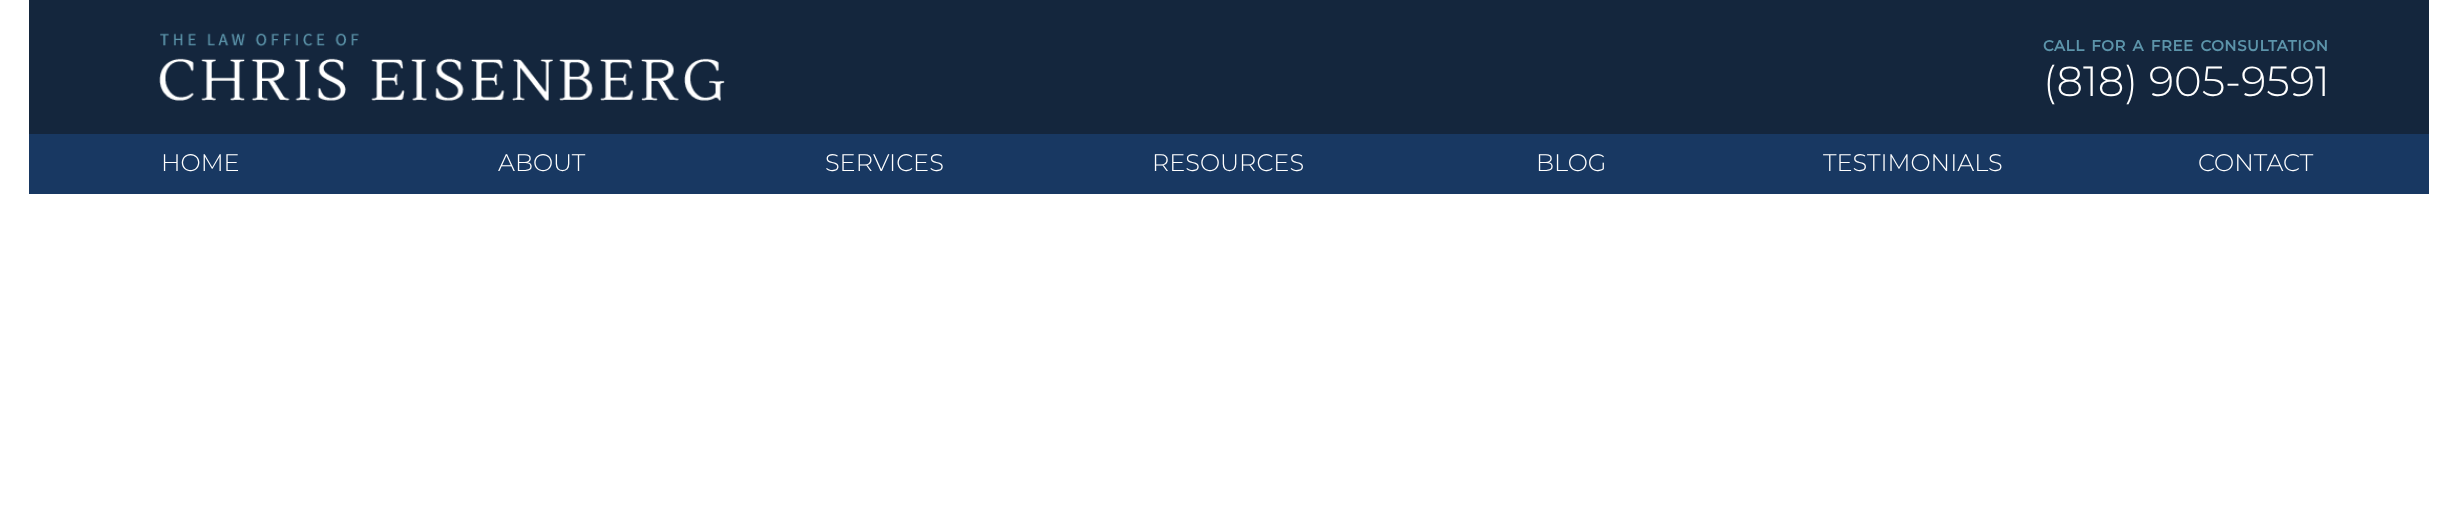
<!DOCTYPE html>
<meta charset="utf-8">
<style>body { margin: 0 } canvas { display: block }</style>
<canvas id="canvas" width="2456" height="523"></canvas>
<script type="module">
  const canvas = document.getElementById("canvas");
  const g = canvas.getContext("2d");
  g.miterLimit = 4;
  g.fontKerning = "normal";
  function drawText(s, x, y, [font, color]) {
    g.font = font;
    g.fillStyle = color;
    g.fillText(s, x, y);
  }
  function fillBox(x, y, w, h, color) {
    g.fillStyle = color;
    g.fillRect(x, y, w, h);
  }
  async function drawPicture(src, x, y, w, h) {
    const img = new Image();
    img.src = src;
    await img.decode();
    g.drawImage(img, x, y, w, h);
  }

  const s1 = ["bold 15px Montserrat", "#5C94AA"];
  const s2 = ["300 42px Montserrat", "#FFFFFF"];
  const s3 = ["300 24px Montserrat", "#FFFFFF"];

  fillBox(0, 0, 2456, 523, "#FFFFFF");
  fillBox(29, 0, 2400, 134, "#14263D");
  await drawPicture("pic1.png", 159, 33, 566, 68);
  g.letterSpacing = "0.6px";
  g.wordSpacing = "2px";
  drawText("CALL FOR A FREE CONSULTATION", 2043, 51, s1);
  g.letterSpacing = "0px";
  g.wordSpacing = "0px";
  drawText("(818) 905-9591", 2043, 96, s2);
  fillBox(29, 134, 2400, 60, "#183862");
  drawText("HOME", 161, 171, s3);
  drawText("ABOUT", 498, 171, s3);
  drawText("SERVICES", 825, 171, s3);
  drawText("RESOURCES", 1152, 171, s3);
  drawText("BLOG", 1536, 171, s3);
  drawText("TESTIMONIALS", 1823, 171, s3);
  drawText("CONTACT", 2198, 171, s3);
</script>
